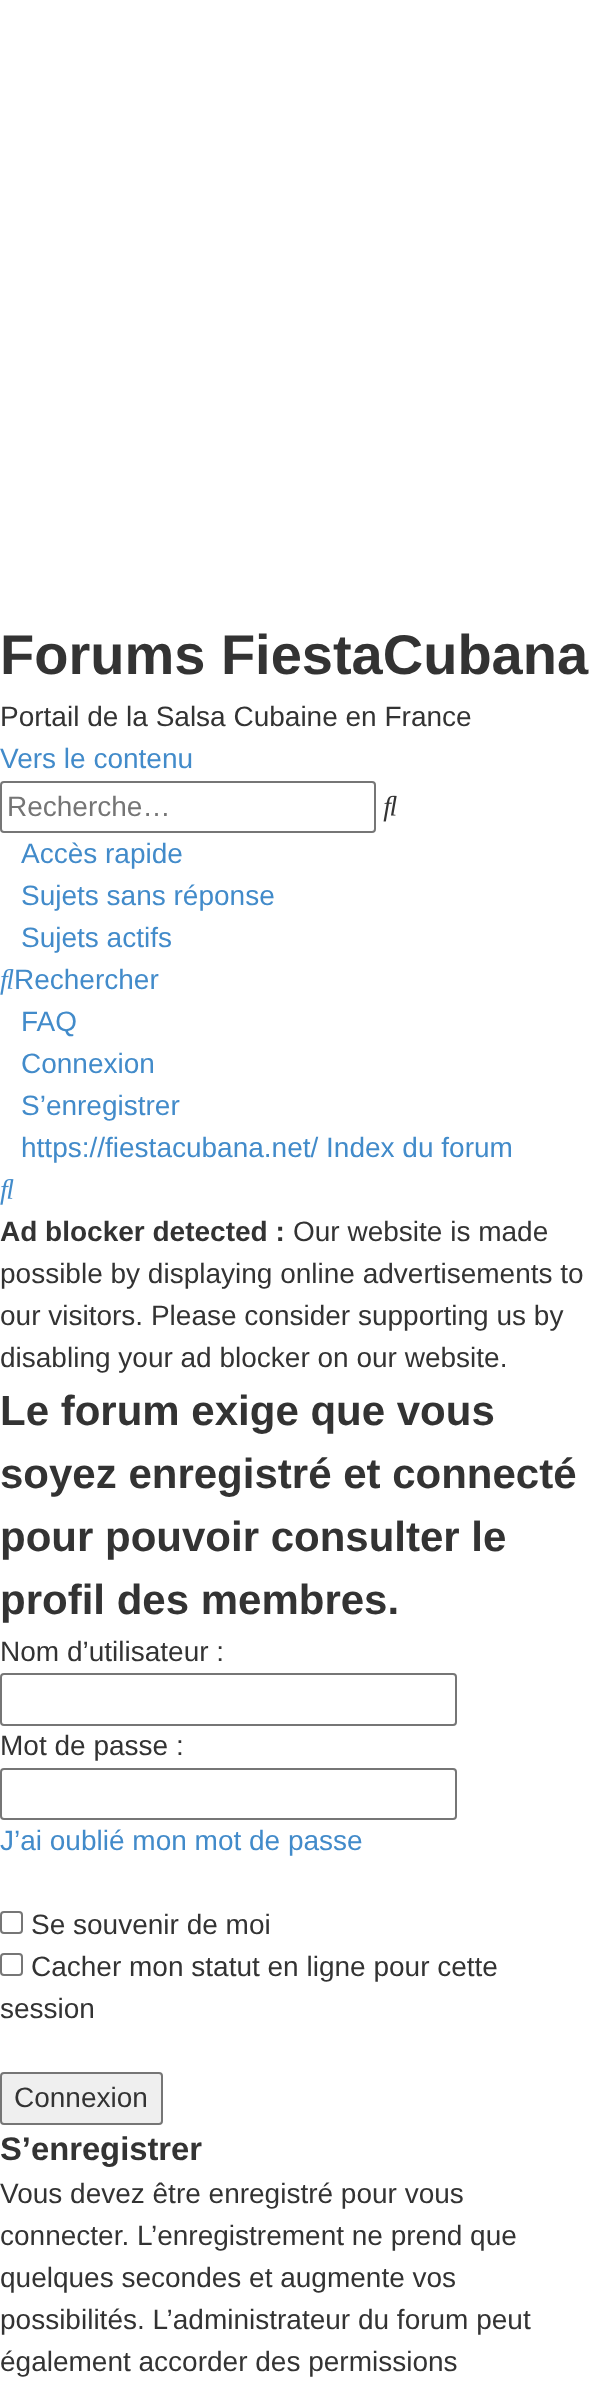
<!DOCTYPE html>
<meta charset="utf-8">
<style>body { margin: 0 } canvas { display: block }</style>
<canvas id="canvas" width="595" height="2381"></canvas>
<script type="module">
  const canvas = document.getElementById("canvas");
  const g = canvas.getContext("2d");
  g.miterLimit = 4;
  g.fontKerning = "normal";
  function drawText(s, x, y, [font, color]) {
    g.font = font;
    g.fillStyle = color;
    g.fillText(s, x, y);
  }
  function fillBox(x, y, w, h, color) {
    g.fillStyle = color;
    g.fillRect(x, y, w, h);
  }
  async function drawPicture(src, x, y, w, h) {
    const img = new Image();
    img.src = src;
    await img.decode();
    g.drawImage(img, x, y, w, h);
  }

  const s1 = ["bold 56px Liberation Sans", "#333333"];
  const s2 = ["28px Liberation Sans", "#333333"];
  const s3 = ["28px Liberation Sans", "#428BCA"];
  const s4 = ["28px Liberation Sans", "#757575"];
  const s5 = ["bold 28px Liberation Sans", "#333333"];
  const s6 = ["bold 42px Liberation Sans", "#333333"];
  const s7 = ["bold 32.75px Liberation Sans", "#333333"];

  fillBox(0, 0, 595, 2381, "#FFFFFF");
  drawText("Forums FiestaCubana", 0, 674, s1);
  drawText("Portail de la Salsa Cubaine en France", 0, 726, s2);
  drawText("Vers le contenu", 0, 768, s3);
  g.beginPath();
  g.roundRect(1, 782, 374, 50, 3);
  g.strokeStyle = "#767676";
  g.lineWidth = 2;
  g.stroke();
  drawText("Recherche…", 7, 816, s4);
  await drawPicture("pic1.png", 383, 795, 14, 27);
  drawText("Accès rapide", 21, 863, s3);
  drawText("Sujets sans réponse", 21, 905, s3);
  drawText("Sujets actifs", 21, 947, s3);
  await drawPicture("pic2.png", 0, 969, 14, 26);
  drawText("Rechercher", 14, 989, s3);
  drawText("FAQ", 21, 1031, s3);
  drawText("Connexion", 21, 1073, s3);
  drawText("S’enregistrer", 21, 1115, s3);
  drawText("https://fiestacubana.net/ Index du forum", 21, 1157, s3);
  await drawPicture("pic2.png", 0, 1179, 14, 26);
  drawText("Ad blocker detected :", 0, 1241, s5);
  drawText("Our website is made", 293, 1241, s2);
  drawText("possible by displaying online advertisements to", 0, 1283, s2);
  drawText("our visitors. Please consider supporting us by", 0, 1325, s2);
  drawText("disabling your ad blocker on our website.", 0, 1367, s2);
  drawText("Le forum exige que vous", 0, 1425, s6);
  drawText("soyez enregistré et connecté", 0, 1488, s6);
  drawText("pour pouvoir consulter le", 0, 1551, s6);
  drawText("profil des membres.", 0, 1614, s6);
  drawText("Nom d’utilisateur :", 0, 1661, s2);
  g.beginPath();
  g.roundRect(1, 1674, 455, 51, 3);
  g.stroke();
  drawText("Mot de passe :", 0, 1755, s2);
  g.beginPath();
  g.roundRect(1, 1769, 455, 50, 3);
  g.stroke();
  drawText("J’ai oublié mon mot de passe", 0, 1850, s3);
  g.beginPath();
  g.roundRect(1, 1912, 21, 21, 3);
  g.stroke();
  drawText("Se souvenir de moi", 31, 1934, s2);
  g.beginPath();
  g.roundRect(1, 1954, 21, 21, 3);
  g.stroke();
  drawText("Cacher mon statut en ligne pour cette", 31, 1976, s2);
  drawText("session", 0, 2018, s2);
  g.fillStyle = "#EFEFEF";
  g.beginPath();
  g.roundRect(1, 2073, 161, 51, 3);
  g.fill();
  g.stroke();
  drawText("Connexion", 14, 2107, s2);
  drawText("S’enregistrer", 0, 2160, s7);
  drawText("Vous devez être enregistré pour vous", 0, 2203, s2);
  drawText("connecter. L’enregistrement ne prend que", 0, 2245, s2);
  drawText("quelques secondes et augmente vos", 0, 2287, s2);
  drawText("possibilités. L’administrateur du forum peut", 0, 2329, s2);
  drawText("également accorder des permissions", 0, 2371, s2);
</script>
